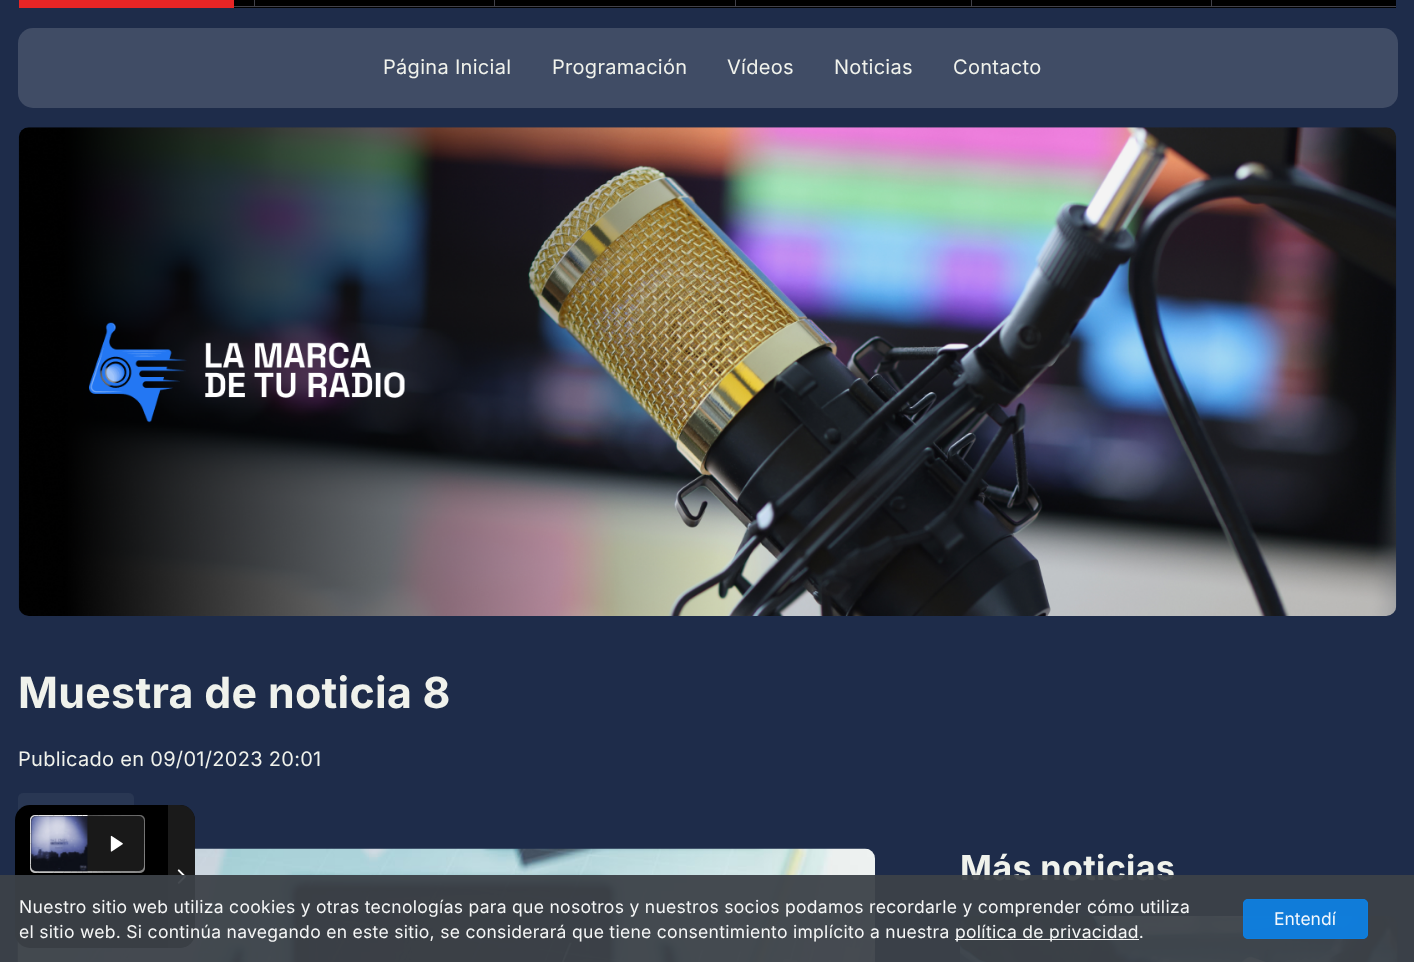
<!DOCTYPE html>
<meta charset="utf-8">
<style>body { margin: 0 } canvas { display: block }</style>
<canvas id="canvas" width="1414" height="962"></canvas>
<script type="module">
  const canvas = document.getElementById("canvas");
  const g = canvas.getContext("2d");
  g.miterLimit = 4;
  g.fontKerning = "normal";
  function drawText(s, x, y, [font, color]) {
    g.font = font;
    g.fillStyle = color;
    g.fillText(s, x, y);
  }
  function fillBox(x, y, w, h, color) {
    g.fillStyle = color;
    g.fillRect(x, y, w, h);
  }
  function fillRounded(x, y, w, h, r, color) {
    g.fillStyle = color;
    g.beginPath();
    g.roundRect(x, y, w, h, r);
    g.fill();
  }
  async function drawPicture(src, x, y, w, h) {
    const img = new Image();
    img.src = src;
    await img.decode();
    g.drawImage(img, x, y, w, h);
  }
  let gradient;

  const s1 = ["20px Inter", "#F0F2EC"];
  const s2 = ["bold 42.9px Inter", "#F0F2EC"];
  const s3 = ["bold 34.25px Inter", "#F0F2EC"];
  const s4 = ["17.5px Inter", "#F5F6F6"];
  const s5 = ["17.5px Inter", "#F3F8FD"];

  fillBox(0, 0, 1414, 962, "#1E2C4A");
  fillBox(19, 0, 215, 8, "#E72525");
  fillBox(234, 0, 1162, 8, "#000000");
  fillBox(234, 6, 1162, 1, "#414149");
  fillBox(254, 0, 1, 6, "#414149");
  fillBox(494, 0, 1, 6, "#414149");
  fillBox(735, 0, 1, 6, "#414149");
  fillBox(971, 0, 1, 6, "#414149");
  fillBox(1211, 0, 1, 6, "#414149");
  fillRounded(18, 28, 1380, 80, 15, "#404C65");
  g.letterSpacing = "0.3px";
  drawText("Página Inicial", 383, 74, s1);
  drawText("Programación", 552, 74, s1);
  drawText("Vídeos", 727, 74, s1);
  drawText("Noticias", 834, 74, s1);
  drawText("Contacto", 953, 74, s1);
  await drawPicture("pic1.png", 18, 127, 1379, 489);
  drawText("Muestra de noticia 8", 18, 708, s2);
  drawText("Publicado en 09/01/2023 20:01", 18, 766, s1);
  fillRounded(18, 793, 116, 36, 5, "#293753");
  await drawPicture("pic2.png", 17, 848, 858, 114);
  drawText("Más noticias", 960, 880, s3);
  await drawPicture("pic3.png", 960, 916, 438, 46);
  g.save();
  g.beginPath();
  g.roundRect(15, 805, 180, 143, 15);
  g.clip();
  g.fillStyle = "#000000";
  g.beginPath();
  g.roundRect(15, 805, 10, 143, [10, 0, 0, 10]);
  g.fill();
  g.beginPath();
  g.roundRect(25, 805, 170, 143, [0, 15, 15, 0]);
  g.fill();
  g.restore();
  fillRounded(30, 815, 115, 58, 5, "#4D4D4D");
  await drawPicture("pic4.png", 30, 815, 115, 58);
  fillRounded(31, 816, 113, 55, 5, "#191919");
  await drawPicture("pic5.png", 31, 816, 57, 56);
  await drawPicture("pic6.png", 110, 835, 13, 17);
  g.save();
  g.beginPath();
  g.roundRect(15, 805, 180, 143, 15);
  g.clip();
  gradient = g.createLinearGradient(15, 925, 30, 925);
  gradient.addColorStop(0.2, "#000000");
  gradient.addColorStop(1, "rgba(0, 0, 0, 0)");
  g.fillStyle = gradient;
  g.fillRect(15, 913, 15, 25);
  g.restore();
  g.fillStyle = "#1A1A1A";
  g.beginPath();
  g.roundRect(168, 805, 27, 143, [0, 15, 15, 0]);
  g.fill();
  await drawPicture("pic7.png", 177, 869, 9, 15);
  fillBox(0, 875, 1414, 87, "rgba(60, 65, 72, 0.95)");
  drawText("Nuestro sitio web utiliza cookies y otras tecnologías para que nosotros y nuestros socios podamos recordarle y comprender cómo utiliza", 19, 913, s4);
  drawText("el sitio web. Si continúa navegando en este sitio, se considerará que tiene consentimiento implícito a nuestra", 19, 938, s4);
  fillBox(955, 939, 184, 1, "rgba(255, 255, 255, 0.95)");
  drawText("política de privacidad.", 955, 938, s4);
  fillRounded(1243, 899, 125, 40, 5, "rgba(14, 127, 226, 0.95)");
  g.beginPath();
  g.roundRect(1243.5, 899.5, 124, 39, 4.5);
  g.strokeStyle = "rgba(14, 127, 226, 0.95)";
  g.stroke();
  g.letterSpacing = "0px";
  drawText("Entendí", 1274, 925, s5);
</script>
